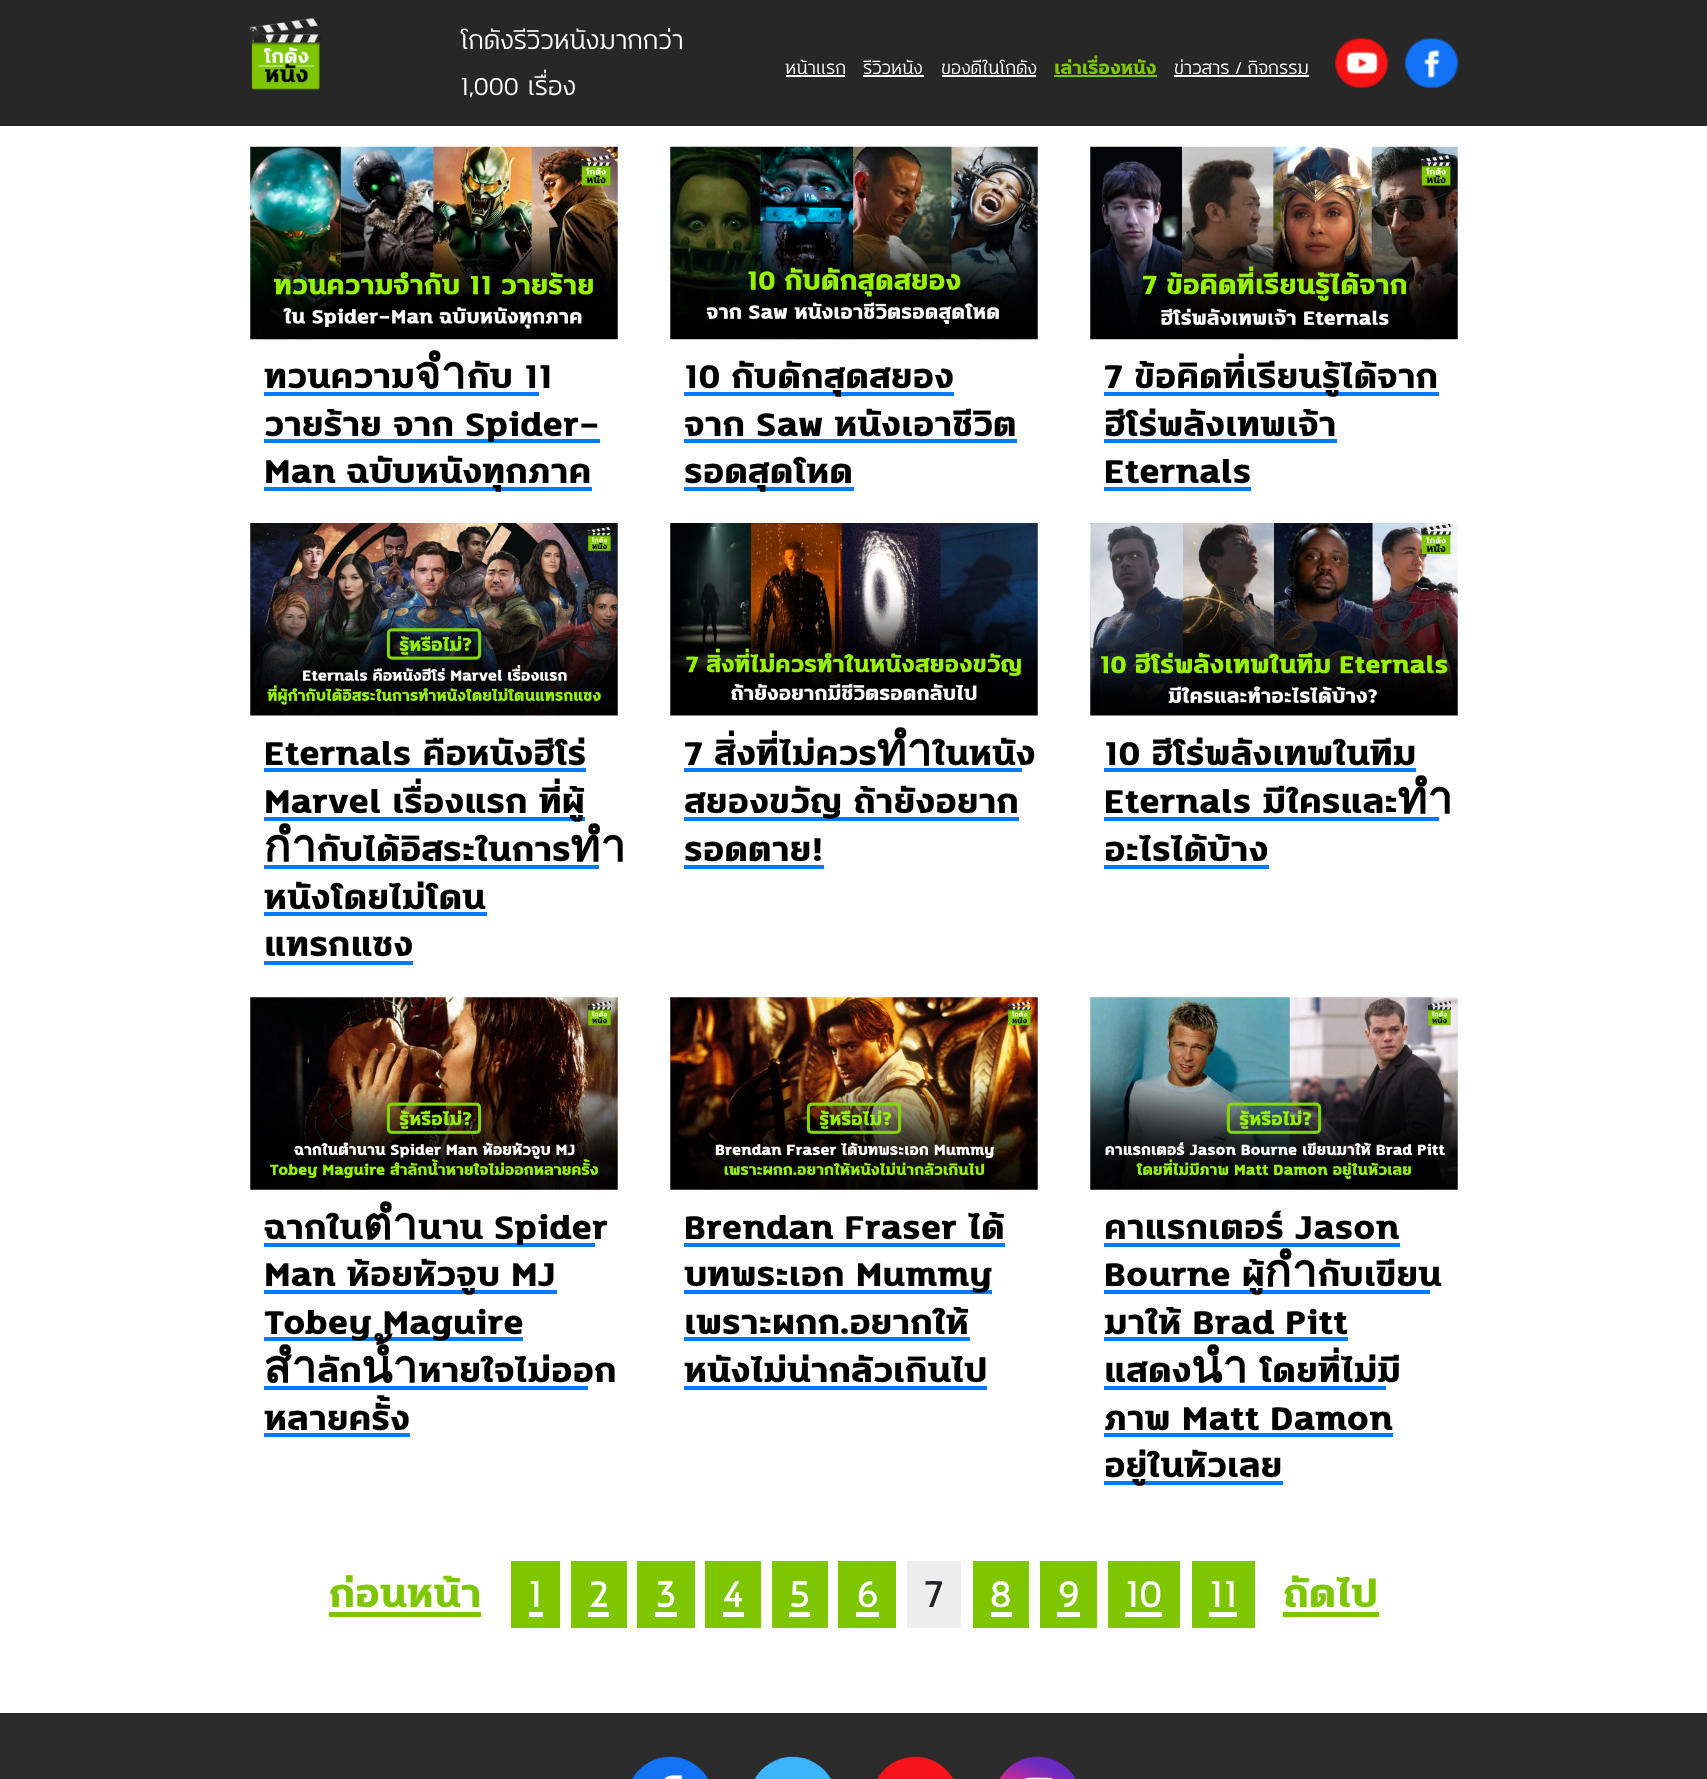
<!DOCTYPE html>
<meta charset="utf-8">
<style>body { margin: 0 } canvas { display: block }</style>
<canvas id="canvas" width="1707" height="1779"></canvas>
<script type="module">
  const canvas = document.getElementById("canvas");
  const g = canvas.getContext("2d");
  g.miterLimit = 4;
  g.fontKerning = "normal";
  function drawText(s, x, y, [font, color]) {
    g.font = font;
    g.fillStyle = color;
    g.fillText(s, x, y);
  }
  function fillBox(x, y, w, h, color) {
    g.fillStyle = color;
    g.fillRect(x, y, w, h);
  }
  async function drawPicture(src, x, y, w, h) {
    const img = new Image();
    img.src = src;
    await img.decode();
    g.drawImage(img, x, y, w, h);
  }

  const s1 = ["300 35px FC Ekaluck", "#FFFFFF"];
  const s2 = ["300 24.5px FC Ekaluck", "#FFFFFF"];
  const s3 = ["bold 24.5px FC Ekaluck", "#7EC600"];
  const s4 = ["bold 45.5px FC Ekaluck", "#000000"];
  const s5 = ["bold 52.5px FC Ekaluck", "#7EC600"];
  const s6 = ["52.5px FC Ekaluck", "#FFFFFF"];
  const s7 = ["52.5px FC Ekaluck", "#212529"];

  fillBox(0, 0, 1707, 1779, "#FFFFFF");
  fillBox(0, 0, 1707, 126, "#272727");
  await drawPicture("pic1.png", 250, 17, 71, 73);
  drawText("โกดังรีวิวหนังมากกว่า", 460, 49, s1);
  drawText("1,000 เรื่อง", 460, 95, s1);
  drawText("หน้าแรก", 785, 74, s2);
  fillBox(786, 75, 59, 2, "#FFFFFF");
  drawText("รีวิวหนัง", 863, 74, s2);
  fillBox(863, 75, 61, 2, "#FFFFFF");
  drawText("ของดีในโกดัง", 941, 74, s2);
  fillBox(942, 75, 94, 2, "#FFFFFF");
  drawText("เล่าเรื่องหนัง", 1054, 74, s3);
  fillBox(1054, 75, 103, 2, "#7EC600");
  drawText("ข่าวสาร / กิจกรรม", 1174, 74, s2);
  fillBox(1174, 75, 135, 2, "#FFFFFF");
  await drawPicture("pic2.png", 1335, 37, 54, 51);
  await drawPicture("pic3.png", 1405, 37, 54, 51);
  await drawPicture("pic4.png", 250, 146, 368, 194);
  drawText("ทวนความจำกับ 11", 264, 388, s4);
  fillBox(264, 392, 275, 4, "#007BFF");
  fillBox(264, 439, 336, 4, "#007BFF");
  drawText("วายร้าย จาก Spider-", 264, 436, s4);
  fillBox(264, 487, 328, 4, "#007BFF");
  drawText("Man ฉบับหนังทุกภาค", 264, 483, s4);
  await drawPicture("pic5.png", 670, 146, 368, 194);
  fillBox(684, 392, 270, 4, "#007BFF");
  drawText("10 กับดักสุดสยอง", 684, 388, s4);
  drawText("จาก Saw หนังเอาชีวิต", 684, 436, s4);
  fillBox(684, 439, 333, 4, "#007BFF");
  fillBox(684, 487, 170, 4, "#007BFF");
  drawText("รอดสุดโหด", 684, 483, s4);
  await drawPicture("pic6.png", 1090, 146, 368, 194);
  fillBox(1104, 392, 335, 4, "#007BFF");
  drawText("7 ข้อคิดที่เรียนรู้ได้จาก", 1104, 388, s4);
  drawText("ฮีโร่พลังเทพเจ้า", 1104, 436, s4);
  fillBox(1104, 439, 233, 4, "#007BFF");
  drawText("Eternals", 1104, 483, s4);
  fillBox(1104, 487, 147, 4, "#007BFF");
  await drawPicture("pic7.png", 250, 523, 368, 193);
  drawText("Eternals คือหนังฮีโร่", 264, 765, s4);
  fillBox(264, 768, 322, 4, "#007BFF");
  fillBox(264, 817, 321, 4, "#007BFF");
  drawText("Marvel เรื่องแรก ที่ผู้", 264, 813, s4);
  drawText("กำกับได้อิสระในการทำ", 264, 861, s4);
  fillBox(264, 865, 335, 4, "#007BFF");
  drawText("หนังโดยไม่โดน", 264, 909, s4);
  fillBox(264, 912, 223, 4, "#007BFF");
  drawText("แทรกแซง", 264, 956, s4);
  fillBox(264, 961, 149, 4, "#007BFF");
  await drawPicture("pic8.png", 670, 523, 368, 193);
  drawText("7 สิ่งที่ไม่ควรทำในหนัง", 684, 765, s4);
  fillBox(684, 768, 338, 4, "#007BFF");
  fillBox(684, 817, 335, 4, "#007BFF");
  drawText("สยองขวัญ ถ้ายังอยาก", 684, 813, s4);
  drawText("รอดตาย!", 684, 861, s4);
  fillBox(684, 865, 140, 4, "#007BFF");
  await drawPicture("pic9.png", 1090, 523, 368, 193);
  drawText("10 ฮีโร่พลังเทพในทีม", 1104, 765, s4);
  fillBox(1104, 768, 312, 4, "#007BFF");
  drawText("Eternals มีใครและทำ", 1104, 813, s4);
  fillBox(1104, 817, 335, 4, "#007BFF");
  drawText("อะไรได้บ้าง", 1104, 861, s4);
  fillBox(1104, 865, 165, 4, "#007BFF");
  await drawPicture("pic10.png", 250, 997, 368, 193);
  fillBox(264, 1243, 331, 4, "#007BFF");
  drawText("ฉากในตำนาน Spider", 264, 1239, s4);
  fillBox(264, 1290, 293, 4, "#007BFF");
  drawText("Man ห้อยหัวจูบ MJ", 264, 1286, s4);
  fillBox(264, 1337, 259, 4, "#007BFF");
  drawText("Tobey Maguire", 264, 1334, s4);
  drawText("สำลักน้ำหายใจไม่ออก", 264, 1382, s4);
  fillBox(264, 1386, 324, 4, "#007BFF");
  drawText("หลายครั้ง", 264, 1430, s4);
  fillBox(264, 1433, 146, 4, "#007BFF");
  await drawPicture("pic11.png", 670, 997, 368, 193);
  drawText("Brendan Fraser ได้", 684, 1239, s4);
  fillBox(684, 1243, 321, 4, "#007BFF");
  fillBox(684, 1290, 308, 4, "#007BFF");
  drawText("บทพระเอก Mummy", 684, 1286, s4);
  drawText("เพราะผกก.อยากให้", 684, 1334, s4);
  fillBox(684, 1337, 286, 4, "#007BFF");
  drawText("หนังไม่น่ากลัวเกินไป", 684, 1382, s4);
  fillBox(684, 1386, 303, 4, "#007BFF");
  await drawPicture("pic12.png", 1090, 997, 368, 193);
  drawText("คาแรกเตอร์ Jason", 1104, 1239, s4);
  fillBox(1104, 1243, 296, 4, "#007BFF");
  fillBox(1104, 1290, 326, 4, "#007BFF");
  drawText("Bourne ผู้กำกับเขียน", 1104, 1286, s4);
  drawText("มาให้ Brad Pitt", 1104, 1334, s4);
  fillBox(1104, 1337, 244, 4, "#007BFF");
  drawText("แสดงนำ โดยที่ไม่มี", 1104, 1382, s4);
  fillBox(1104, 1386, 282, 4, "#007BFF");
  drawText("ภาพ Matt Damon", 1104, 1430, s4);
  fillBox(1104, 1433, 289, 4, "#007BFF");
  fillBox(1104, 1481, 179, 4, "#007BFF");
  drawText("อยู่ในหัวเลย", 1104, 1477, s4);
  drawText("ก่อนหน้า", 329, 1607, s5);
  fillBox(329, 1612, 152, 5, "#7EC600");
  fillBox(511, 1561, 49, 67, "#7EC600");
  drawText("1", 528, 1607, s6);
  fillBox(529, 1612, 14, 5, "#FFFFFF");
  fillBox(571, 1561, 56, 67, "#7EC600");
  drawText("2", 588, 1607, s6);
  fillBox(588, 1612, 21, 5, "#FFFFFF");
  fillBox(637, 1561, 58, 67, "#7EC600");
  drawText("3", 655, 1607, s6);
  fillBox(655, 1612, 22, 5, "#FFFFFF");
  fillBox(705, 1561, 56, 67, "#7EC600");
  drawText("4", 723, 1607, s6);
  fillBox(723, 1612, 21, 5, "#FFFFFF");
  fillBox(772, 1561, 56, 67, "#7EC600");
  drawText("5", 789, 1607, s6);
  fillBox(789, 1612, 21, 5, "#FFFFFF");
  fillBox(838, 1561, 58, 67, "#7EC600");
  drawText("6", 857, 1607, s6);
  fillBox(856, 1612, 23, 5, "#FFFFFF");
  fillBox(907, 1561, 54, 67, "#EEEEEE");
  drawText("7", 924, 1607, s7);
  fillBox(973, 1561, 56, 67, "#7EC600");
  drawText("8", 990, 1607, s6);
  fillBox(991, 1612, 21, 5, "#FFFFFF");
  fillBox(1040, 1561, 57, 67, "#7EC600");
  drawText("9", 1058, 1607, s6);
  fillBox(1057, 1612, 23, 5, "#FFFFFF");
  fillBox(1108, 1561, 72, 67, "#7EC600");
  drawText("10", 1125, 1607, s6);
  fillBox(1125, 1612, 37, 5, "#FFFFFF");
  fillBox(1192, 1561, 63, 67, "#7EC600");
  drawText("11", 1209, 1607, s6);
  fillBox(1209, 1612, 28, 5, "#FFFFFF");
  drawText("ถัดไป", 1283, 1607, s5);
  fillBox(1283, 1612, 96, 5, "#7EC600");
  fillBox(0, 1713, 1707, 66, "#2B2B2B");
  await drawPicture("pic13.png", 632, 1756, 77, 23);
  await drawPicture("pic14.png", 754, 1756, 77, 23);
  await drawPicture("pic15.png", 877, 1756, 77, 23);
  await drawPicture("pic16.png", 999, 1756, 77, 23);
</script>
